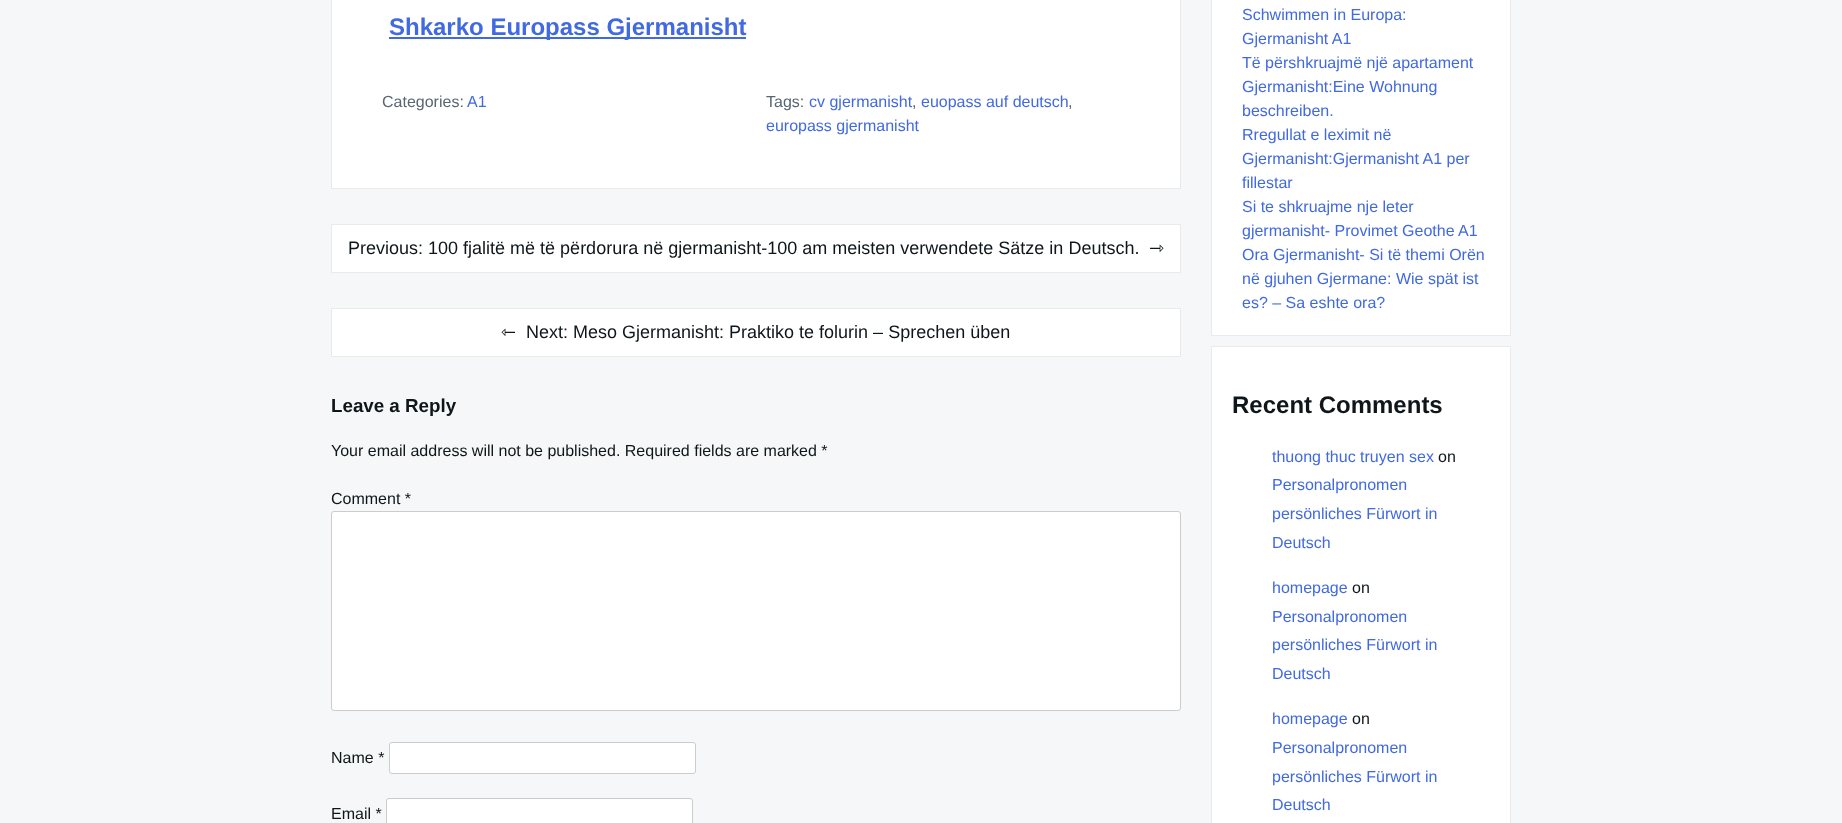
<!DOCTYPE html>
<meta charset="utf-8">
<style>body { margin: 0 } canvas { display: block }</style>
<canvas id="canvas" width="1842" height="823"></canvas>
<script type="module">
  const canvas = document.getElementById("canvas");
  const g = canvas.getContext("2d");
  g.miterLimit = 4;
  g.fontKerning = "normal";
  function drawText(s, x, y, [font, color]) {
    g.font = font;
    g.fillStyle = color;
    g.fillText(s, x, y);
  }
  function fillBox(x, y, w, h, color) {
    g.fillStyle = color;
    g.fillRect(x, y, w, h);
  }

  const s1 = ["bold 24px Liberation Sans", "#4169E1"];
  const s2 = ["16px Liberation Sans", "#586674"];
  const s3 = ["16px Liberation Sans", "#4169E1"];
  const s4 = ["18px Liberation Sans", "#0F161A"];
  const s5 = ["18px DejaVu Sans", "#0F161A"];
  const s6 = ["bold 18.75px Liberation Sans", "#0F161A"];
  const s7 = ["16px Liberation Sans", "#0F161A"];
  const s8 = ["bold 24px Liberation Sans", "#0F161A"];

  fillBox(0, 0, 1842, 823, "#F5F7F8");
  fillBox(332, 0, 848, 90, "#FFFFFF");
  fillBox(1180, 0, 1, 90, "#E9EBEB");
  fillBox(331, 0, 1, 90, "#E9EBEB");
  fillBox(389, 37, 357, 2, "#4169E1");
  drawText("Shkarko Europass Gjermanisht", 389, 35, s1);
  fillBox(331, 90, 850, 99, "#FFFFFF");
  g.fillStyle = "#E9EBEB";
  g.beginPath();
  g.moveTo(1181, 90);
  g.lineTo(1181, 189);
  g.lineTo(1180, 188);
  g.lineTo(1180, 90);
  g.closePath();
  g.fill();
  g.fillStyle = "rgba(38, 50, 56, 0.1)";
  g.beginPath();
  g.moveTo(1181, 189);
  g.lineTo(331, 189);
  g.lineTo(332, 188);
  g.lineTo(1180, 188);
  g.closePath();
  g.fill();
  g.beginPath();
  g.moveTo(331, 189);
  g.lineTo(331, 90);
  g.lineTo(332, 90);
  g.lineTo(332, 188);
  g.closePath();
  g.fill();
  drawText("Categories:", 382, 107, s2);
  drawText("A1", 467, 107, s3);
  drawText("Tags:", 766, 107, s2);
  drawText("cv gjermanisht", 809, 107, s3);
  drawText(",", 912, 107, s2);
  drawText("euopass auf deutsch", 921, 107, s3);
  drawText(",", 1068, 107, s2);
  drawText("europass gjermanisht", 766, 131, s3);
  g.fillStyle = "#FFFFFF";
  g.beginPath();
  g.rect(331.5, 224.5, 849, 48);
  g.fill();
  g.strokeStyle = "#E9EBEB";
  g.stroke();
  drawText("Previous: 100 fjalitë më të përdorura në gjermanisht-100 am meisten verwendete Sätze in Deutsch.", 348, 254, s4);
  drawText("⇾", 1149, 254, s5);
  g.fillStyle = "#FFFFFF";
  g.beginPath();
  g.rect(331.5, 308.5, 849, 48);
  g.fill();
  g.stroke();
  drawText("⇽", 501, 338, s5);
  drawText("Next: Meso Gjermanisht: Praktiko te folurin – Sprechen üben", 526, 338, s4);
  drawText("Leave a Reply", 331, 412, s6);
  drawText("Your email address will not be published. Required fields are marked *", 331, 456, s7);
  drawText("Comment *", 331, 504, s7);
  g.fillStyle = "#FFFFFF";
  g.beginPath();
  g.roundRect(331.5, 511.5, 849, 199, 2.5);
  g.fill();
  g.strokeStyle = "#CCCCCC";
  g.stroke();
  drawText("Name *", 331, 763, s7);
  g.fillStyle = "#FFFFFF";
  g.beginPath();
  g.roundRect(389.5, 742.5, 306, 31, 2.5);
  g.fill();
  g.stroke();
  drawText("Email *", 331, 819, s7);
  g.fillStyle = "#FFFFFF";
  g.beginPath();
  g.roundRect(386.5, 798.5, 306, 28, 2.5);
  g.fill();
  g.stroke();
  g.beginPath();
  g.rect(1211.5, -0.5, 299, 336);
  g.fill();
  g.strokeStyle = "#E9EBEB";
  g.stroke();
  drawText("Schwimmen in Europa:", 1242, 20, s3);
  drawText("Gjermanisht A1", 1242, 44, s3);
  drawText("Të përshkruajmë një apartament", 1242, 68, s3);
  drawText("Gjermanisht:Eine Wohnung", 1242, 92, s3);
  drawText("beschreiben.", 1242, 116, s3);
  drawText("Rregullat e leximit në", 1242, 140, s3);
  drawText("Gjermanisht:Gjermanisht A1 per", 1242, 164, s3);
  drawText("fillestar", 1242, 188, s3);
  drawText("Si te shkruajme nje leter", 1242, 212, s3);
  drawText("gjermanisht- Provimet Geothe A1", 1242, 236, s3);
  drawText("Ora Gjermanisht- Si të themi Orën", 1242, 260, s3);
  drawText("në gjuhen Gjermane: Wie spät ist", 1242, 284, s3);
  drawText("es? – Sa eshte ora?", 1242, 308, s3);
  g.fillStyle = "#FFFFFF";
  g.beginPath();
  g.rect(1211.5, 346.5, 299, 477);
  g.fill();
  g.stroke();
  drawText("Recent Comments", 1232, 413, s8);
  drawText("thuong thuc truyen sex", 1272, 462, s3);
  drawText("on", 1438, 462, s7);
  drawText("Personalpronomen", 1272, 490, s3);
  drawText("persönliches Fürwort in", 1272, 519, s3);
  drawText("Deutsch", 1272, 548, s3);
  drawText("homepage", 1272, 593, s3);
  drawText("on", 1352, 593, s7);
  drawText("Personalpronomen", 1272, 622, s3);
  drawText("persönliches Fürwort in", 1272, 650, s3);
  drawText("Deutsch", 1272, 679, s3);
  drawText("homepage", 1272, 724, s3);
  drawText("on", 1352, 724, s7);
  drawText("Personalpronomen", 1272, 753, s3);
  drawText("persönliches Fürwort in", 1272, 782, s3);
  drawText("Deutsch", 1272, 810, s3);
</script>
